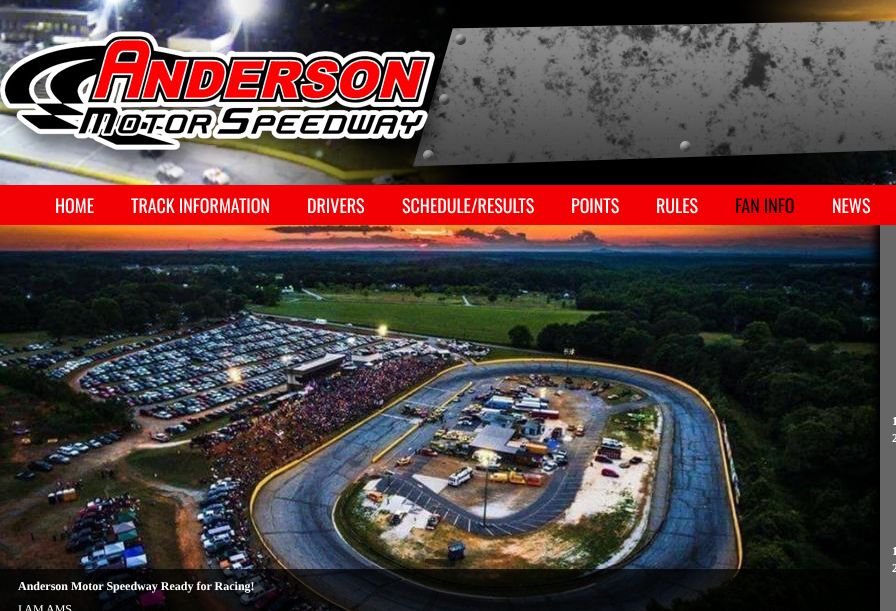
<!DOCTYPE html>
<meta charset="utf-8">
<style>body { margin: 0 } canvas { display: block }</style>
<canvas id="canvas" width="896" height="611"></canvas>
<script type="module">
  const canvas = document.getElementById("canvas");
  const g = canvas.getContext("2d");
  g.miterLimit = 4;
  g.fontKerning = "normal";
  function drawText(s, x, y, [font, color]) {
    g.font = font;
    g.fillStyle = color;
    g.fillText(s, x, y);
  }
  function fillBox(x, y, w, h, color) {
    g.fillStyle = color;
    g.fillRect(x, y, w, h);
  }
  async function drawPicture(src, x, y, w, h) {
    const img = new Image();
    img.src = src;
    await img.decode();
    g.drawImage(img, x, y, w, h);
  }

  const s1 = ["18px Oswald", "#FFFFFF"];
  const s2 = ["18px Oswald", "#000000"];
  const s3 = ["bold 12px Liberation Serif", "#FFFFFF"];
  const s4 = ["12px Liberation Serif", "#FFFFFF"];

  fillBox(0, 0, 896, 611, "#FFFFFF");
  await drawPicture("pic1.png", 0, 0, 896, 185);
  await drawPicture("pic2.png", 0, 225, 880, 386);
  fillBox(0, 569, 880, 42, "rgba(0, 0, 0, 0.7)");
  g.fillStyle = "#000000";
  g.filter = "blur(5px)";
  g.beginPath();
  g.rect(875, 223, 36, 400);
  g.fill();
  g.filter = "none";
  fillBox(0, 185, 896, 40, "#F30005");
  drawText("HOME", 55, 213, s1);
  drawText("TRACK INFORMATION", 131, 213, s1);
  drawText("DRIVERS", 307, 213, s1);
  drawText("SCHEDULE/RESULTS", 402, 213, s1);
  drawText("POINTS", 571, 213, s1);
  drawText("RULES", 656, 213, s1);
  drawText("FAN INFO", 735, 213, s2);
  drawText("NEWS", 832, 213, s1);
  fillBox(880, 225, 16, 386, "#676767");
  drawText("1", 892, 425, s3);
  drawText("2", 892, 442, s3);
  drawText("1", 892, 555, s3);
  drawText("2", 892, 572, s3);
  fillBox(425, 559, 30, 8, "rgba(0, 0, 0, 0.4)");
  drawText("Anderson Motor Speedway Ready for Racing!", 18, 590, s3);
  drawText("I AM AMS", 18, 613, s4);
</script>
